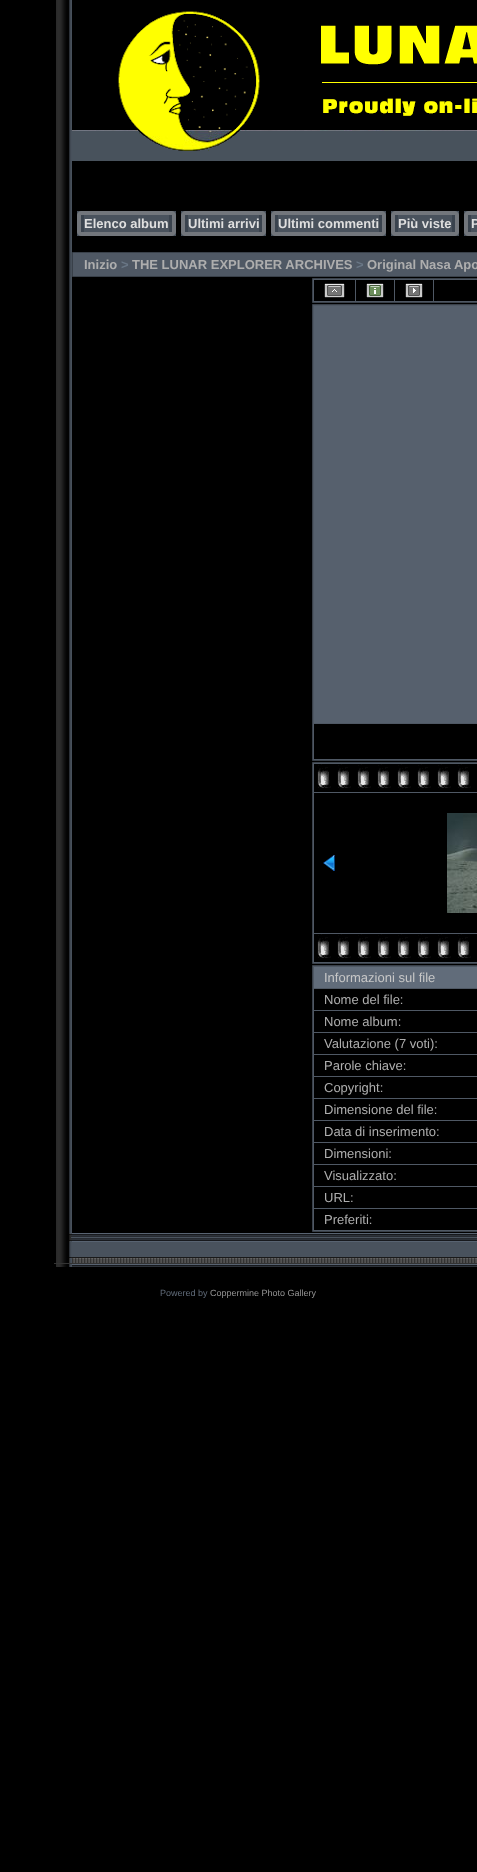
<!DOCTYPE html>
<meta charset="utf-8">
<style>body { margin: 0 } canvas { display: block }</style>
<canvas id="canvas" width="477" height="1872"></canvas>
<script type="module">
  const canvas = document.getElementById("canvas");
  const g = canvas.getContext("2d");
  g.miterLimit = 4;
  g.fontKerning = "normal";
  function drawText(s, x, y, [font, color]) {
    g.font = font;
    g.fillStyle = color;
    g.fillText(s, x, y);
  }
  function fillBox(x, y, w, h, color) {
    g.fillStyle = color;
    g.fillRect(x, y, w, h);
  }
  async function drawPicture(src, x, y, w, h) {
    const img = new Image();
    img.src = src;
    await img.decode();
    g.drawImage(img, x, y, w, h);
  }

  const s1 = ["bold 13px Liberation Sans", "#DFDFDF"];
  const s2 = ["bold 13px Liberation Sans", "#AEAEAE"];
  const s3 = ["bold 13px Liberation Sans", "#6A7786"];
  const s4 = ["13px Liberation Sans", "#C7C7C7"];
  const s5 = ["13px Liberation Sans", "#AEAEAE"];
  const s6 = ["9px Liberation Sans", "#616C7A"];
  const s7 = ["9px Liberation Sans", "#949494"];

  fillBox(0, 0, 477, 1872, "#000000");
  await drawPicture("pic1.png", 56, 0, 16, 161);
  fillBox(72, 151, 405, 10, "#48525C");
  await drawPicture("pic2.png", 72, 11, 405, 140);
  await drawPicture("pic3.png", 56, 161, 16, 1072);
  await drawPicture("pic4.png", 77, 211, 7, 25);
  await drawPicture("pic5.png", 84, 211, 85, 25);
  drawText("Elenco album", 84, 228, s1);
  await drawPicture("pic6.png", 169, 211, 7, 25);
  await drawPicture("pic4.png", 181, 211, 7, 25);
  await drawPicture("pic7.png", 188, 211, 71, 25);
  drawText("Ultimi arrivi", 188, 228, s1);
  await drawPicture("pic6.png", 259, 211, 7, 25);
  await drawPicture("pic4.png", 271, 211, 7, 25);
  await drawPicture("pic8.png", 278, 211, 101, 25);
  drawText("Ultimi commenti", 278, 228, s1);
  await drawPicture("pic6.png", 379, 211, 7, 25);
  await drawPicture("pic4.png", 391, 211, 7, 25);
  await drawPicture("pic9.png", 398, 211, 54, 25);
  drawText("Più viste", 398, 228, s1);
  await drawPicture("pic6.png", 452, 211, 7, 25);
  await drawPicture("pic4.png", 464, 211, 7, 25);
  await drawPicture("pic10.png", 471, 211, 6, 25);
  drawText("P", 471, 228, s1);
  g.fillStyle = "#4F5864";
  g.beginPath();
  g.rect(72.5, 252.5, 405, 24);
  g.fill();
  g.strokeStyle = "#394049";
  g.stroke();
  drawText("Inizio", 84, 269, s2);
  drawText(">", 121, 269, s3);
  drawText("THE LUNAR EXPLORER ARCHIVES", 132, 269, s2);
  drawText(">", 356, 269, s3);
  drawText("Original Nasa Apo", 367, 269, s2);
  g.fillStyle = "#4F5864";
  g.beginPath();
  g.rect(312.5, 278.5, 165, 24);
  g.fill();
  g.stroke();
  fillBox(314, 280, 41, 21, "#000000");
  await drawPicture("pic11.png", 324, 283, 21, 15);
  fillBox(356, 280, 38, 21, "#000000");
  await drawPicture("pic12.png", 366, 283, 18, 15);
  fillBox(395, 280, 38, 21, "#000000");
  await drawPicture("pic13.png", 405, 283, 18, 15);
  fillBox(434, 280, 43, 21, "#000000");
  g.fillStyle = "#4F5864";
  g.beginPath();
  g.rect(312.5, 304.5, 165, 456);
  g.fill();
  g.stroke();
  fillBox(314, 306, 163, 417, "#56606D");
  fillBox(314, 724, 163, 35, "#000000");
  g.fillStyle = "#4F5864";
  g.beginPath();
  g.rect(312.5, 762.5, 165, 201);
  g.fill();
  g.stroke();
  fillBox(314, 764, 163, 28, "#000000");
  await drawPicture("pic14.png", 317, 764, 154, 24);
  fillBox(314, 793, 163, 140, "#000000");
  await drawPicture("pic15.png", 323, 855, 12, 16);
  await drawPicture("pic16.png", 447, 813, 30, 100);
  fillBox(314, 934, 163, 28, "#000000");
  await drawPicture("pic14.png", 317, 934, 154, 24);
  g.fillStyle = "#4F5864";
  g.beginPath();
  g.rect(312.5, 965.5, 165, 266);
  g.fill();
  g.stroke();
  fillBox(314, 967, 163, 21, "#616C7A");
  drawText("Informazioni sul file", 324, 982, s4);
  fillBox(314, 989, 163, 21, "#000000");
  drawText("Nome del file:", 324, 1004, s5);
  fillBox(314, 1011, 163, 21, "#000000");
  drawText("Nome album:", 324, 1026, s5);
  fillBox(314, 1033, 163, 21, "#000000");
  drawText("Valutazione (7 voti):", 324, 1048, s5);
  fillBox(314, 1055, 163, 21, "#000000");
  drawText("Parole chiave:", 324, 1070, s5);
  fillBox(314, 1077, 163, 21, "#000000");
  drawText("Copyright:", 324, 1092, s5);
  fillBox(314, 1099, 163, 21, "#000000");
  drawText("Dimensione del file:", 324, 1114, s5);
  fillBox(314, 1121, 163, 21, "#000000");
  drawText("Data di inserimento:", 324, 1136, s5);
  fillBox(314, 1143, 163, 21, "#000000");
  drawText("Dimensioni:", 324, 1158, s5);
  fillBox(314, 1165, 163, 21, "#000000");
  drawText("Visualizzato:", 324, 1180, s5);
  fillBox(314, 1187, 163, 21, "#000000");
  drawText("URL:", 324, 1202, s5);
  fillBox(314, 1209, 163, 21, "#000000");
  drawText("Preferiti:", 324, 1224, s5);
  await drawPicture("pic17.png", 56, 1264, 16, 3);
  await drawPicture("pic18.png", 54, 1233, 18, 31);
  await drawPicture("pic19.png", 72, 1233, 405, 34);
  drawText("Powered by", 160, 1296, s6);
  drawText("Coppermine Photo Gallery", 210, 1296, s7);
</script>
